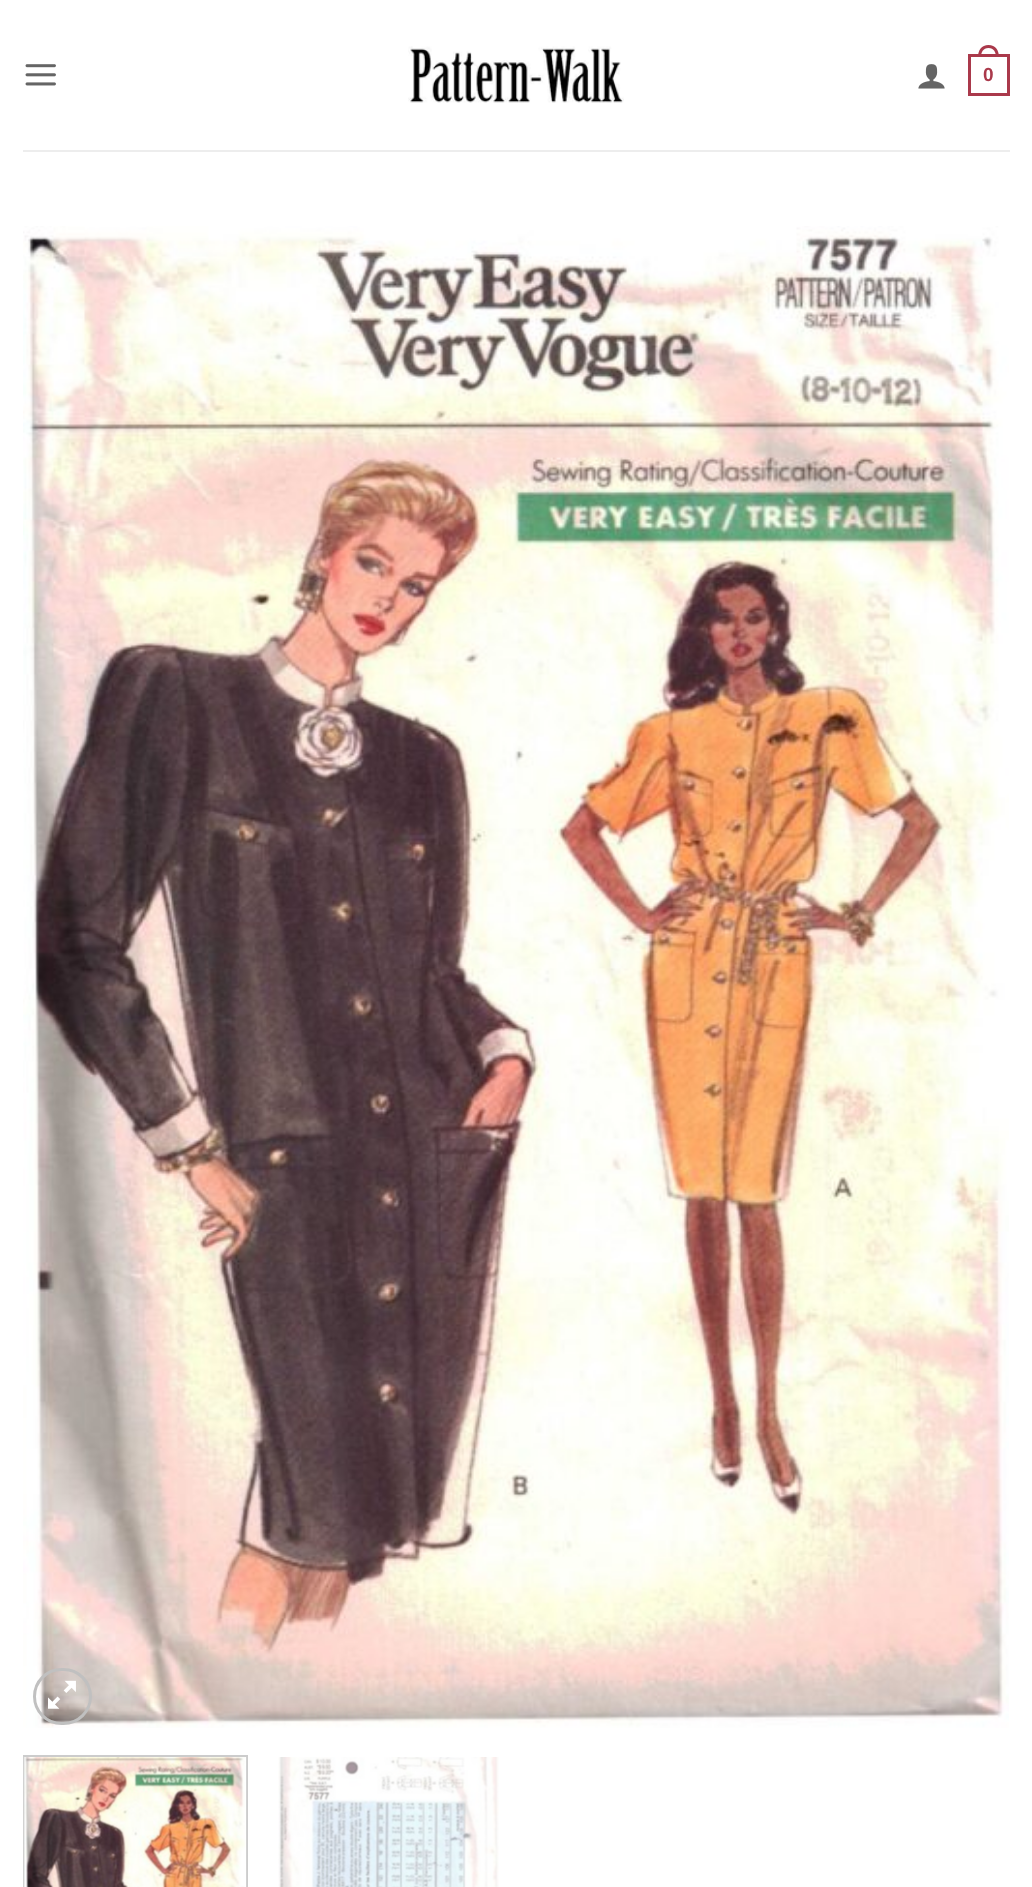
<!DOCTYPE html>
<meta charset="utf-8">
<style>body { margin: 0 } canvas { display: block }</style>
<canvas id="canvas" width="1032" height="1887"></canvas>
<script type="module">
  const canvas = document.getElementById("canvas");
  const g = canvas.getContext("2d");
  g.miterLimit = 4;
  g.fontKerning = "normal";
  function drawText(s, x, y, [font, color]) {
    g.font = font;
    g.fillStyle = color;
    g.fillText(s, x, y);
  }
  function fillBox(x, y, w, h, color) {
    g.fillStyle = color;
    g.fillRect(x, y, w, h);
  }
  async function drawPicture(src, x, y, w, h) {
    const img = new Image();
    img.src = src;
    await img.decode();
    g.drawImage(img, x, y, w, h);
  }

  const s1 = ["bold 19px Liberation Sans", "#AA394B"];

  fillBox(0, 0, 1032, 1887, "#FFFFFF");
  await drawPicture("pic1.png", 25, 64, 31, 22);
  await drawPicture("pic2.png", 408, 46, 216, 57);
  await drawPicture("pic3.png", 918, 64, 27, 25);
  g.strokeStyle = "#AA394B";
  g.lineWidth = 3;
  g.strokeRect(969.5, 55.5, 39, 39);
  g.fillStyle = "#AA394B";
  g.beginPath();
  g.moveTo(988.5, 45);
  g.bezierCurveTo(995.5, 45, 999, 50.5, 999, 57);
  g.lineTo(978, 57);
  g.bezierCurveTo(978, 50.5, 981.5, 45, 988.5, 45);
  g.closePath();
  g.moveTo(988.5, 48);
  g.bezierCurveTo(994, 48, 996, 52.5, 996, 57);
  g.lineTo(981, 57);
  g.bezierCurveTo(981, 52.5, 983, 48, 988.5, 48);
  g.closePath();
  g.fill("evenodd");
  drawText("0", 983, 81, s1);
  fillBox(23, 150, 987, 2, "#EDEDED");
  await drawPicture("pic4.png", 23, 226, 986, 1502);
  g.beginPath();
  g.roundRect(34.5, 1669.5, 56, 54, 27);
  g.strokeStyle = "#C0C0C0";
  g.stroke();
  await drawPicture("pic5.png", 48, 1680, 28, 29);
  g.strokeStyle = "#CCCCCC";
  g.lineWidth = 2;
  g.strokeRect(24, 1756, 223, 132);
  await drawPicture("pic6.png", 23, 1757, 224, 130);
  await drawPicture("pic7.png", 278, 1757, 221, 130);
</script>
